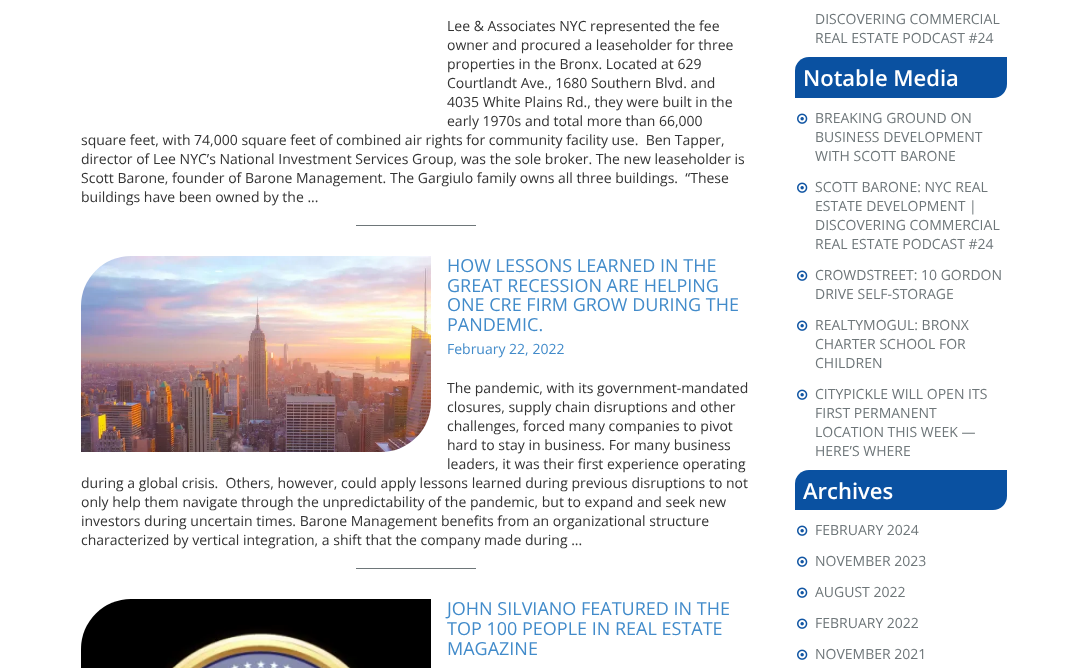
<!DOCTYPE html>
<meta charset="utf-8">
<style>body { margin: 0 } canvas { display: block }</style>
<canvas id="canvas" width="1074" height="668"></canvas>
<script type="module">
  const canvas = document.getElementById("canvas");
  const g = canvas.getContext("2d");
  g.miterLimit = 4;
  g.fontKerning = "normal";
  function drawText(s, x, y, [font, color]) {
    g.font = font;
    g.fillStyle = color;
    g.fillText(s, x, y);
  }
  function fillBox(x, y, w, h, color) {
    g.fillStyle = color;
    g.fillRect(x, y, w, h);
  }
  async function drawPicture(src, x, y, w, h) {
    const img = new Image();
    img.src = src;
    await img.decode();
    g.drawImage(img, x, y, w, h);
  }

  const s1 = ["14px Open Sans", "#333333"];
  const s2 = ["18px Open Sans", "#428BCA"];
  const s3 = ["14px Open Sans", "#428BCA"];
  const s4 = ["14px Open Sans", "#6E7679"];
  const s5 = ["600 22px Open Sans", "#FFFFFF"];

  fillBox(0, 0, 1074, 668, "#FFFFFF");
  drawText("Lee & Associates NYC represented the fee", 447, 31, s1);
  drawText("owner and procured a leaseholder for three", 447, 50, s1);
  drawText("properties in the Bronx. Located at 629", 447, 69, s1);
  drawText("Courtlandt Ave., 1680 Southern Blvd. and", 447, 88, s1);
  drawText("4035 White Plains Rd., they were built in the", 447, 107, s1);
  drawText("early 1970s and total more than 66,000", 447, 126, s1);
  drawText("square feet, with 74,000 square feet of combined air rights for community facility use.  Ben Tapper,", 81, 145, s1);
  drawText("director of Lee NYC’s National Investment Services Group, was the sole broker. The new leaseholder is", 81, 164, s1);
  drawText("Scott Barone, founder of Barone Management. The Gargiulo family owns all three buildings.  “These", 81, 183, s1);
  drawText("buildings have been owned by the ...", 81, 202, s1);
  fillBox(356, 225, 120, 1, "#6E7679");
  await drawPicture("pic1.png", 81, 256, 350, 196);
  drawText("HOW LESSONS LEARNED IN THE", 447, 272, s2);
  drawText("GREAT RECESSION ARE HELPING", 447, 292, s2);
  drawText("ONE CRE FIRM GROW DURING THE", 447, 311, s2);
  drawText("PANDEMIC.", 447, 331, s2);
  drawText("February 22, 2022", 447, 354, s3);
  drawText("The pandemic, with its government-mandated", 447, 393, s1);
  drawText("closures, supply chain disruptions and other", 447, 412, s1);
  drawText("challenges, forced many companies to pivot", 447, 431, s1);
  drawText("hard to stay in business. For many business", 447, 450, s1);
  drawText("leaders, it was their first experience operating", 447, 469, s1);
  drawText("during a global crisis.  Others, however, could apply lessons learned during previous disruptions to not", 81, 488, s1);
  drawText("only help them navigate through the unpredictability of the pandemic, but to expand and seek new", 81, 507, s1);
  drawText("investors during uncertain times. Barone Management benefits from an organizational structure", 81, 526, s1);
  drawText("characterized by vertical integration, a shift that the company made during ...", 81, 545, s1);
  fillBox(356, 568, 120, 1, "#6E7679");
  await drawPicture("pic2.png", 81, 599, 350, 69);
  drawText("JOHN SILVIANO FEATURED IN THE", 447, 615, s2);
  drawText("TOP 100 PEOPLE IN REAL ESTATE", 447, 635, s2);
  drawText("MAGAZINE", 447, 655, s2);
  drawText("DISCOVERING COMMERCIAL", 815, 24, s4);
  drawText("REAL ESTATE PODCAST #24", 815, 43, s4);
  g.fillStyle = "#0A51A1";
  g.beginPath();
  g.roundRect(795, 57, 212, 41, [14, 0, 14, 0]);
  g.fill();
  drawText("Notable Media", 803, 86, s5);
  await drawPicture("pic3.png", 797, 113, 11, 11);
  drawText("BREAKING GROUND ON", 815, 123, s4);
  drawText("BUSINESS DEVELOPMENT", 815, 142, s4);
  drawText("WITH SCOTT BARONE", 815, 161, s4);
  await drawPicture("pic3.png", 797, 182, 11, 11);
  drawText("SCOTT BARONE: NYC REAL", 815, 192, s4);
  drawText("ESTATE DEVELOPMENT |", 815, 211, s4);
  drawText("DISCOVERING COMMERCIAL", 815, 230, s4);
  drawText("REAL ESTATE PODCAST #24", 815, 249, s4);
  await drawPicture("pic3.png", 797, 270, 11, 11);
  drawText("CROWDSTREET: 10 GORDON", 815, 280, s4);
  drawText("DRIVE SELF-STORAGE", 815, 299, s4);
  await drawPicture("pic3.png", 797, 320, 11, 11);
  drawText("REALTYMOGUL: BRONX", 815, 330, s4);
  drawText("CHARTER SCHOOL FOR", 815, 349, s4);
  drawText("CHILDREN", 815, 368, s4);
  await drawPicture("pic3.png", 797, 389, 11, 11);
  drawText("CITYPICKLE WILL OPEN ITS", 815, 399, s4);
  drawText("FIRST PERMANENT", 815, 418, s4);
  drawText("LOCATION THIS WEEK —", 815, 437, s4);
  drawText("HERE’S WHERE", 815, 456, s4);
  g.fillStyle = "#0A51A1";
  g.beginPath();
  g.roundRect(795, 470, 212, 40, [14, 0, 14, 0]);
  g.fill();
  drawText("Archives", 803, 499, s5);
  await drawPicture("pic3.png", 797, 525, 11, 11);
  drawText("FEBRUARY 2024", 815, 535, s4);
  await drawPicture("pic3.png", 797, 556, 11, 11);
  drawText("NOVEMBER 2023", 815, 566, s4);
  await drawPicture("pic3.png", 797, 587, 11, 11);
  drawText("AUGUST 2022", 815, 597, s4);
  await drawPicture("pic3.png", 797, 618, 11, 11);
  drawText("FEBRUARY 2022", 815, 628, s4);
  await drawPicture("pic3.png", 797, 649, 11, 11);
  drawText("NOVEMBER 2021", 815, 659, s4);
</script>
